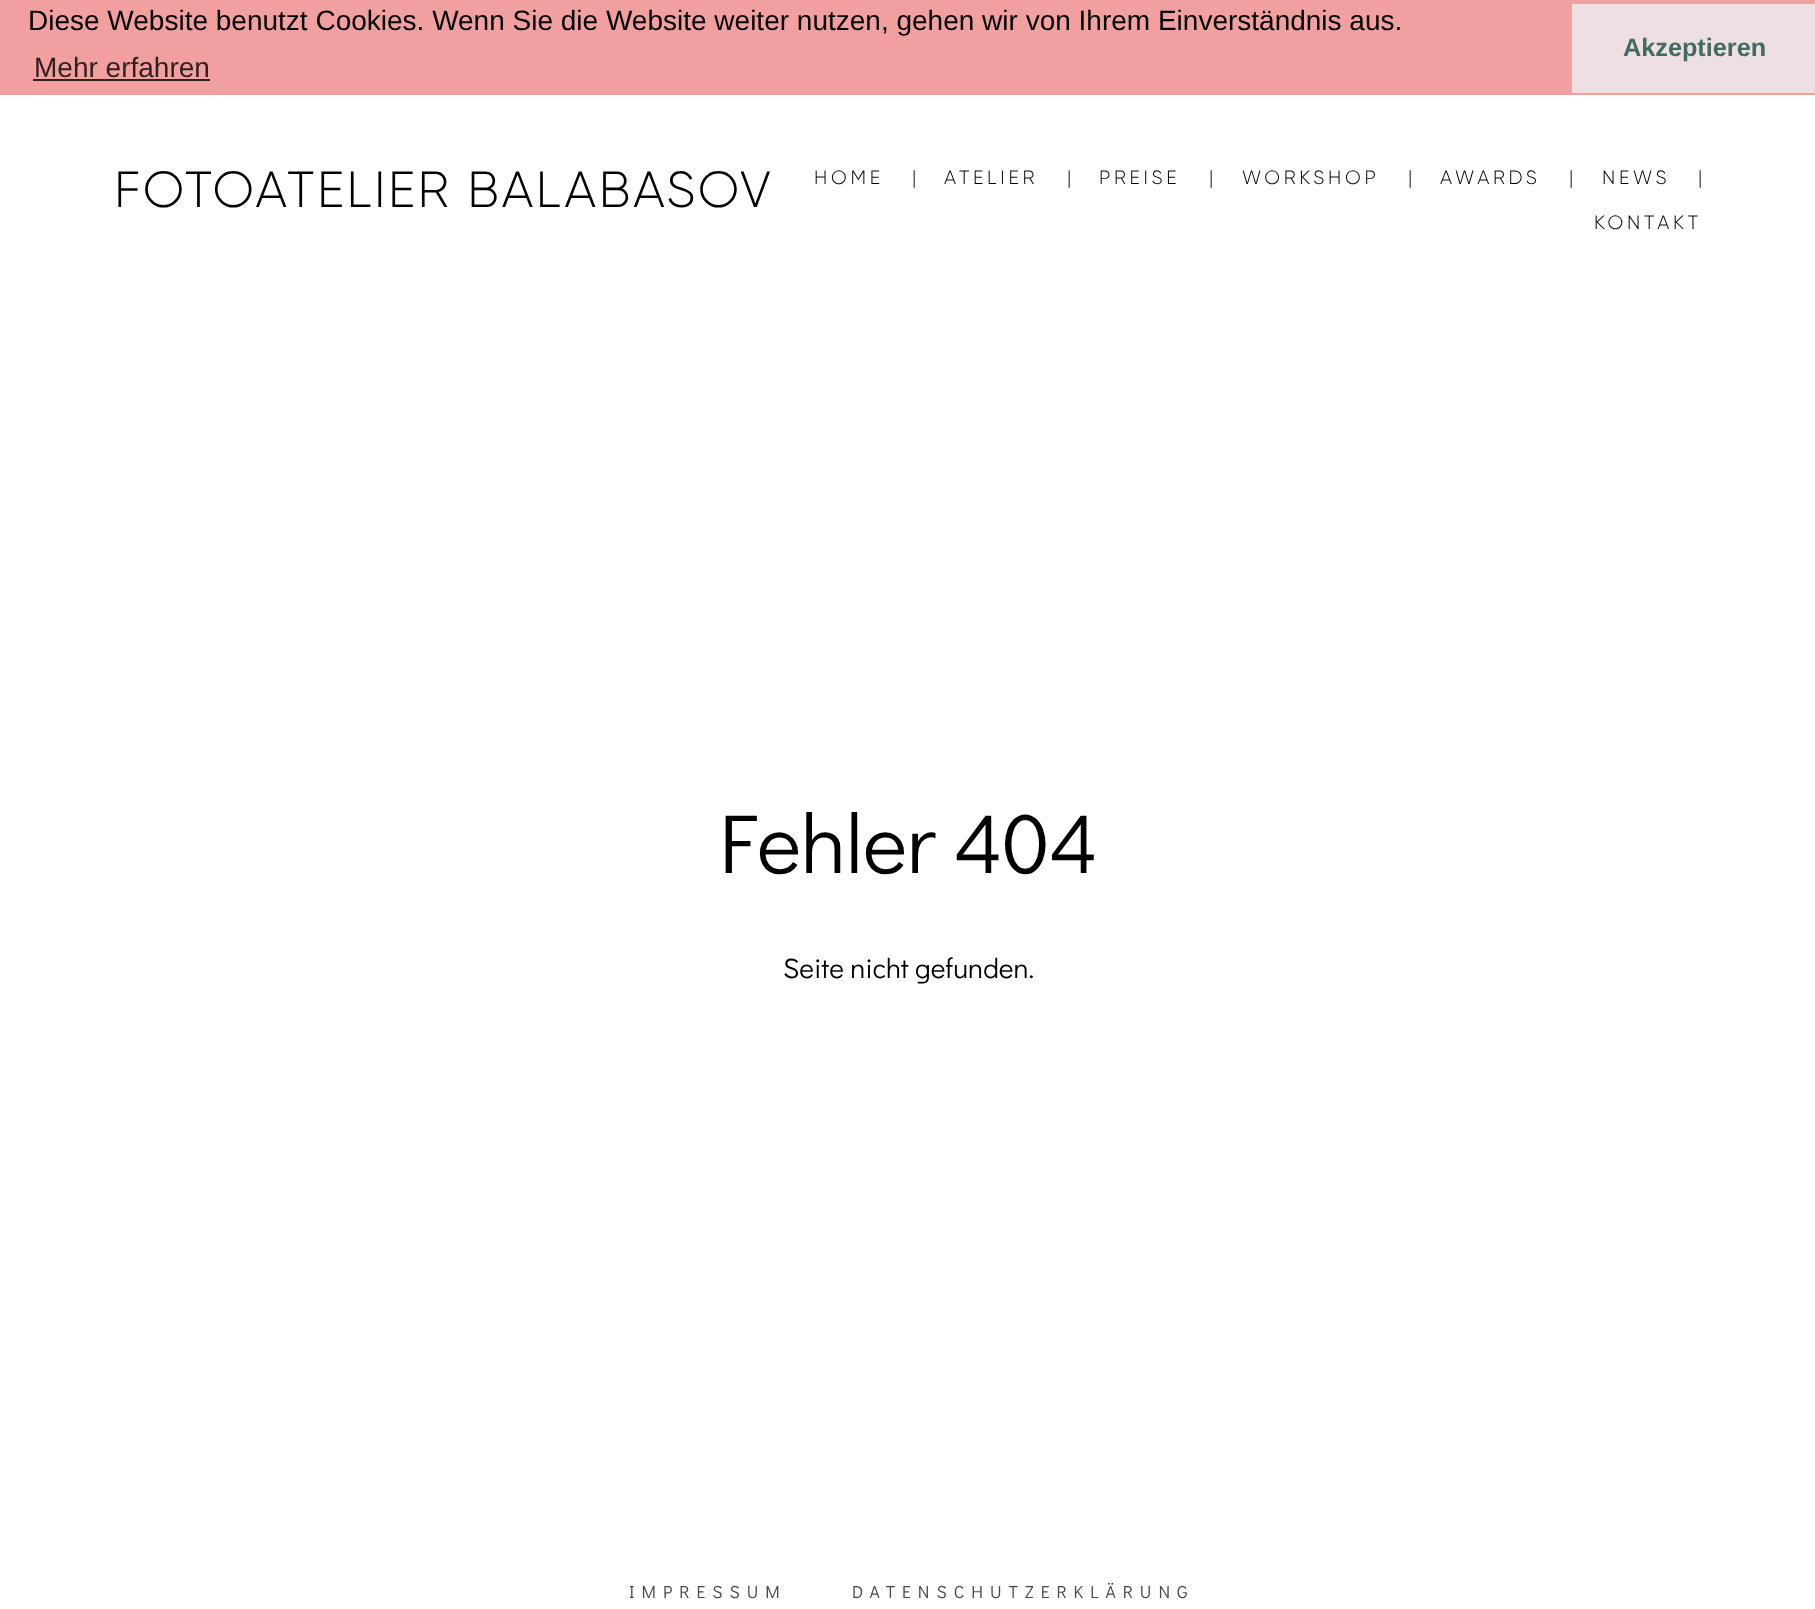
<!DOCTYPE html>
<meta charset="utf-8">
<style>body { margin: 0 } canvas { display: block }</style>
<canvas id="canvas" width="1815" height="1609"></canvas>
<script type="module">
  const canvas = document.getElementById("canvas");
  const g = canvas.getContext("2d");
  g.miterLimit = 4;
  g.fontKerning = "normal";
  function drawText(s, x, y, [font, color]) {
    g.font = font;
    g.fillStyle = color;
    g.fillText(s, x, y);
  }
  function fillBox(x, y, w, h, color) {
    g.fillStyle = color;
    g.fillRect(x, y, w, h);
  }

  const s1 = ["28px Liberation Sans", "#000000"];
  const s2 = ["28px Liberation Sans", "#302020"];
  const s3 = ["bold 25.25px Liberation Sans", "#426B66"];
  const s4 = ["300 50.75px Gilroy", "#000000"];
  const s5 = ["300 19.25px Gilroy", "#000000"];
  const s6 = ["84px Didact Gothic", "#000000"];
  const s7 = ["28px Didact Gothic", "#000000"];
  const s8 = ["17.5px Didact Gothic", "#464553"];

  fillBox(0, 0, 1815, 1609, "#FFFFFF");
  fillBox(0, 0, 1815, 95, "#F29F9F");
  drawText("Diese Website benutzt Cookies. Wenn Sie die Website weiter nutzen, gehen wir von Ihrem Einverständnis aus.", 28, 30, s1);
  drawText("Mehr erfahren", 34, 77, s2);
  fillBox(33, 79, 177, 2, "#302020");
  fillBox(1572, 4, 243, 89, "#EDDFE2");
  drawText("Akzeptieren", 1623, 56, s3);
  g.letterSpacing = "2.5px";
  drawText("FOTOATELIER BALABASOV", 114, 207, s4);
  g.letterSpacing = "3.75px";
  drawText("HOME", 814, 184, s5);
  g.letterSpacing = "0px";
  drawText("|", 912, 184, s5);
  g.letterSpacing = "3.75px";
  drawText("ATELIER", 944, 184, s5);
  g.letterSpacing = "0px";
  drawText("|", 1067, 184, s5);
  g.letterSpacing = "3.75px";
  drawText("PREISE", 1099, 184, s5);
  g.letterSpacing = "0px";
  drawText("|", 1209, 184, s5);
  g.letterSpacing = "3.75px";
  drawText("WORKSHOP", 1242, 184, s5);
  g.letterSpacing = "0px";
  drawText("|", 1408, 184, s5);
  g.letterSpacing = "3.75px";
  drawText("AWARDS", 1440, 184, s5);
  g.letterSpacing = "0px";
  drawText("|", 1569, 184, s5);
  g.letterSpacing = "3.75px";
  drawText("NEWS", 1602, 184, s5);
  g.letterSpacing = "0px";
  drawText("|", 1698, 184, s5);
  g.letterSpacing = "3.75px";
  drawText("KONTAKT", 1594, 229, s5);
  g.letterSpacing = "0px";
  drawText("Fehler 404", 719, 873, s6);
  drawText("Seite nicht gefunden.", 783, 978, s7);
  g.letterSpacing = "7px";
  drawText("IMPRESSUM", 629, 1598, s8);
  drawText("DATENSCHUTZERKLÄRUNG", 852, 1598, s8);
</script>
